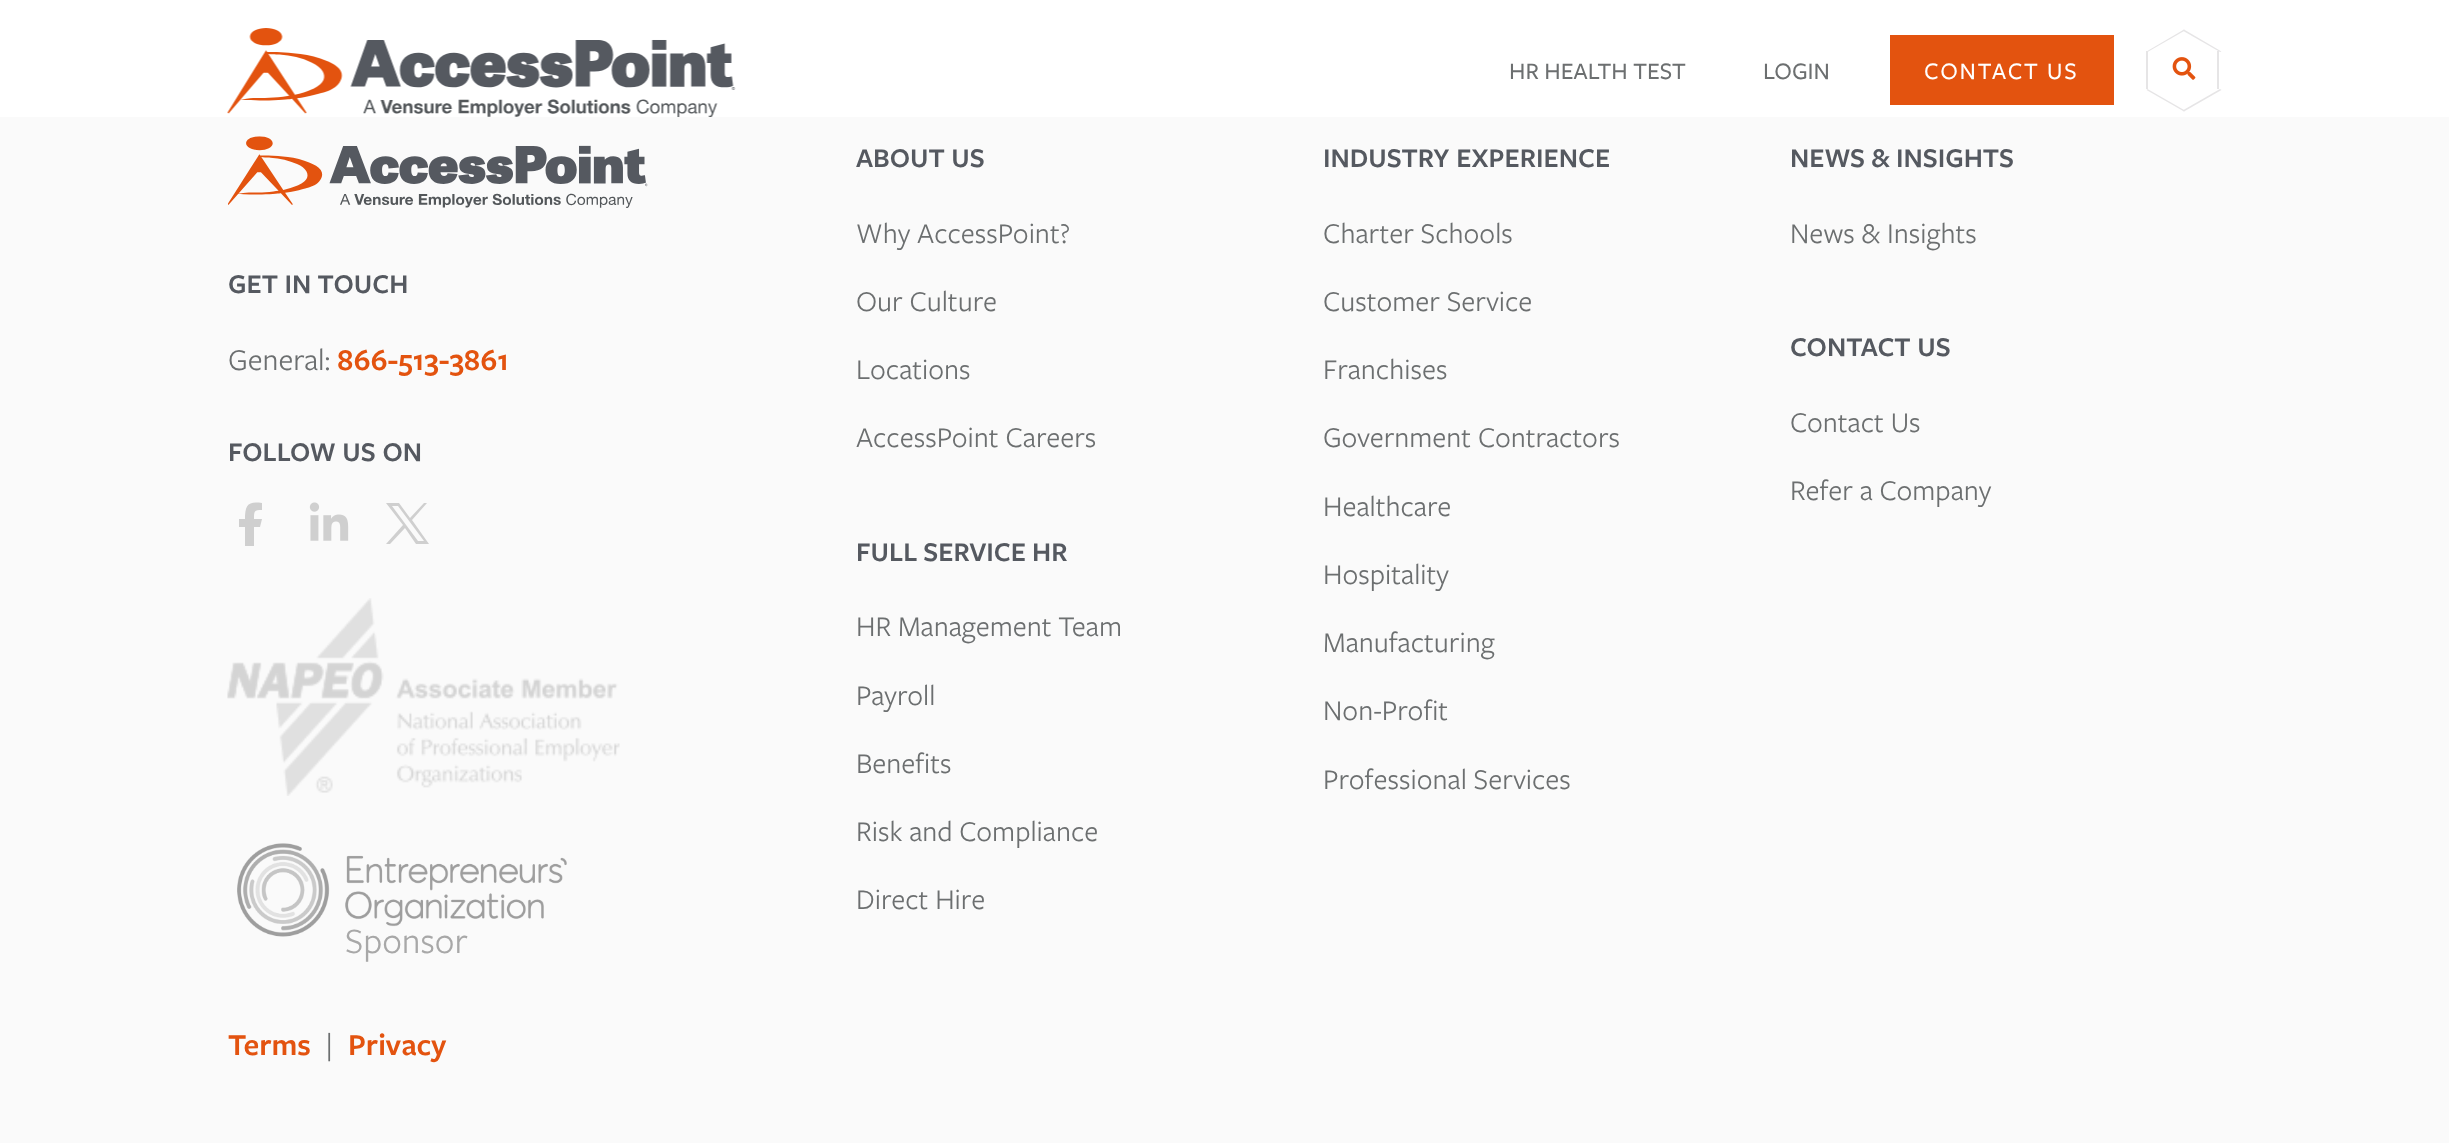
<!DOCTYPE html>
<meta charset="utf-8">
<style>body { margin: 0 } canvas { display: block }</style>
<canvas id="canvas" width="2449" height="1143"></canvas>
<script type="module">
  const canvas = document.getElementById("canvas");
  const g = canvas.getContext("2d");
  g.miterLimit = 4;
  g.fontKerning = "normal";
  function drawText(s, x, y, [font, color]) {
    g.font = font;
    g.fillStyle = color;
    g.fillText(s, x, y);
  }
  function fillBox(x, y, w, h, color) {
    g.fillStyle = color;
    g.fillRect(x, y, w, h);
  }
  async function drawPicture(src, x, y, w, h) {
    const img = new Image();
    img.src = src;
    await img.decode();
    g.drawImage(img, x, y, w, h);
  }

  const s1 = ["500 24.5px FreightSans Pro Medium", "#6C6F70"];
  const s2 = ["500 24.5px FreightSans Pro Medium", "#FFFFFF"];
  const s3 = ["600 28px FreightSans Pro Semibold", "#555960"];
  const s4 = ["31.5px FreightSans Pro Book", "#6C6F70"];
  const s5 = ["600 31.5px FreightSans Pro Semibold", "#E3530F"];
  const s6 = ["37px FreightSans Pro Book", "#A8A8A8"];
  const s7 = ["29.75px FreightSans Pro Book", "#6C6F70"];

  fillBox(0, 0, 2449, 1143, "#FAFAFA");
  fillBox(0, 0, 2449, 117, "#FFFFFF");
  await drawPicture("pic1.png", 227, 28, 509, 89);
  drawText("HR HEALTH TEST", 1509, 79, s1);
  drawText("LOGIN", 1763, 79, s1);
  fillBox(1890, 35, 224, 70, "#E3530F");
  g.letterSpacing = "1.75px";
  drawText("CONTACT US", 1924, 79, s2);
  fillBox(2217, 51, 2, 38, "#E6E5E6");
  fillBox(2146, 51, 2, 38, "#E6E5E6");
  g.beginPath();
  g.moveTo(2146.5, 51.5);
  g.lineTo(2184, 29.5);
  g.lineTo(2185, 30.5);
  g.lineTo(2147.5, 52);
  g.closePath();
  g.fill();
  g.beginPath();
  g.moveTo(2182.5, 30.5);
  g.lineTo(2184, 29.5);
  g.lineTo(2221.5, 51.5);
  g.lineTo(2220, 52);
  g.closePath();
  g.fill();
  await drawPicture("pic2.png", 2172, 57, 24, 23);
  g.beginPath();
  g.moveTo(2182.5, 110.5);
  g.lineTo(2220, 89);
  g.lineTo(2221.5, 90);
  g.lineTo(2184, 111.5);
  g.closePath();
  g.fill();
  g.beginPath();
  g.moveTo(2146.5, 90);
  g.lineTo(2147.5, 89);
  g.lineTo(2185, 110.5);
  g.lineTo(2184, 111.5);
  g.closePath();
  g.fill();
  await drawPicture("pic3.png", 228, 136, 420, 72);
  g.letterSpacing = "0px";
  drawText("GET IN TOUCH", 228, 293, s3);
  drawText("General:", 228, 370, s4);
  drawText("866-513-3861", 337, 370, s5);
  drawText("FOLLOW US ON", 228, 461, s3);
  g.fillStyle = "#CFCFCF";
  g.beginPath();
  g.moveTo(260, 527);
  g.lineTo(254, 527);
  g.lineTo(254, 546);
  g.lineTo(245, 546);
  g.lineTo(245, 527);
  g.lineTo(239, 527);
  g.lineTo(239, 519);
  g.lineTo(245, 519);
  g.bezierCurveTo(245, 505, 248, 501, 262, 503);
  g.lineTo(262, 510);
  g.bezierCurveTo(254, 510, 254, 511, 254, 519);
  g.lineTo(262, 519);
  g.closePath();
  g.fill();
  await drawPicture("pic4.png", 309, 502, 40, 39);
  g.beginPath();
  g.moveTo(386, 503);
  g.lineTo(403, 525);
  g.lineTo(386, 544);
  g.lineTo(390, 544);
  g.lineTo(405, 528);
  g.lineTo(416, 544);
  g.lineTo(429, 544);
  g.lineTo(412, 520);
  g.lineTo(427, 503);
  g.lineTo(424, 503);
  g.lineTo(410, 518);
  g.lineTo(399, 503);
  g.closePath();
  g.moveTo(392, 506);
  g.lineTo(398, 506);
  g.lineTo(424, 541);
  g.lineTo(418, 541);
  g.closePath();
  g.fill();
  await drawPicture("pic5.png", 227, 598, 393, 198);
  await drawPicture("pic6.png", 237, 843, 330, 94);
  drawText("Sponsor", 345, 953, s6);
  drawText("Terms", 228, 1055, s5);
  drawText("|", 325, 1055, s4);
  drawText("Privacy", 348, 1055, s5);
  drawText("ABOUT US", 856, 167, s3);
  drawText("Why AccessPoint?", 856, 243, s7);
  drawText("Our Culture", 856, 311, s7);
  drawText("Locations", 856, 379, s7);
  drawText("AccessPoint Careers", 856, 447, s7);
  drawText("FULL SERVICE HR", 856, 561, s3);
  drawText("HR Management Team", 856, 636, s7);
  drawText("Payroll", 856, 705, s7);
  drawText("Benefits", 856, 773, s7);
  drawText("Risk and Compliance", 856, 841, s7);
  drawText("Direct Hire", 856, 909, s7);
  drawText("INDUSTRY EXPERIENCE", 1323, 167, s3);
  drawText("Charter Schools", 1323, 243, s7);
  drawText("Customer Service", 1323, 311, s7);
  drawText("Franchises", 1323, 379, s7);
  drawText("Government Contractors", 1323, 447, s7);
  drawText("Healthcare", 1323, 516, s7);
  drawText("Hospitality", 1323, 584, s7);
  drawText("Manufacturing", 1323, 652, s7);
  drawText("Non-Profit", 1323, 720, s7);
  drawText("Professional Services", 1323, 789, s7);
  drawText("NEWS & INSIGHTS", 1790, 167, s3);
  drawText("News & Insights", 1790, 243, s7);
  drawText("CONTACT US", 1790, 356, s3);
  drawText("Contact Us", 1790, 432, s7);
  drawText("Refer a Company", 1790, 500, s7);
</script>
